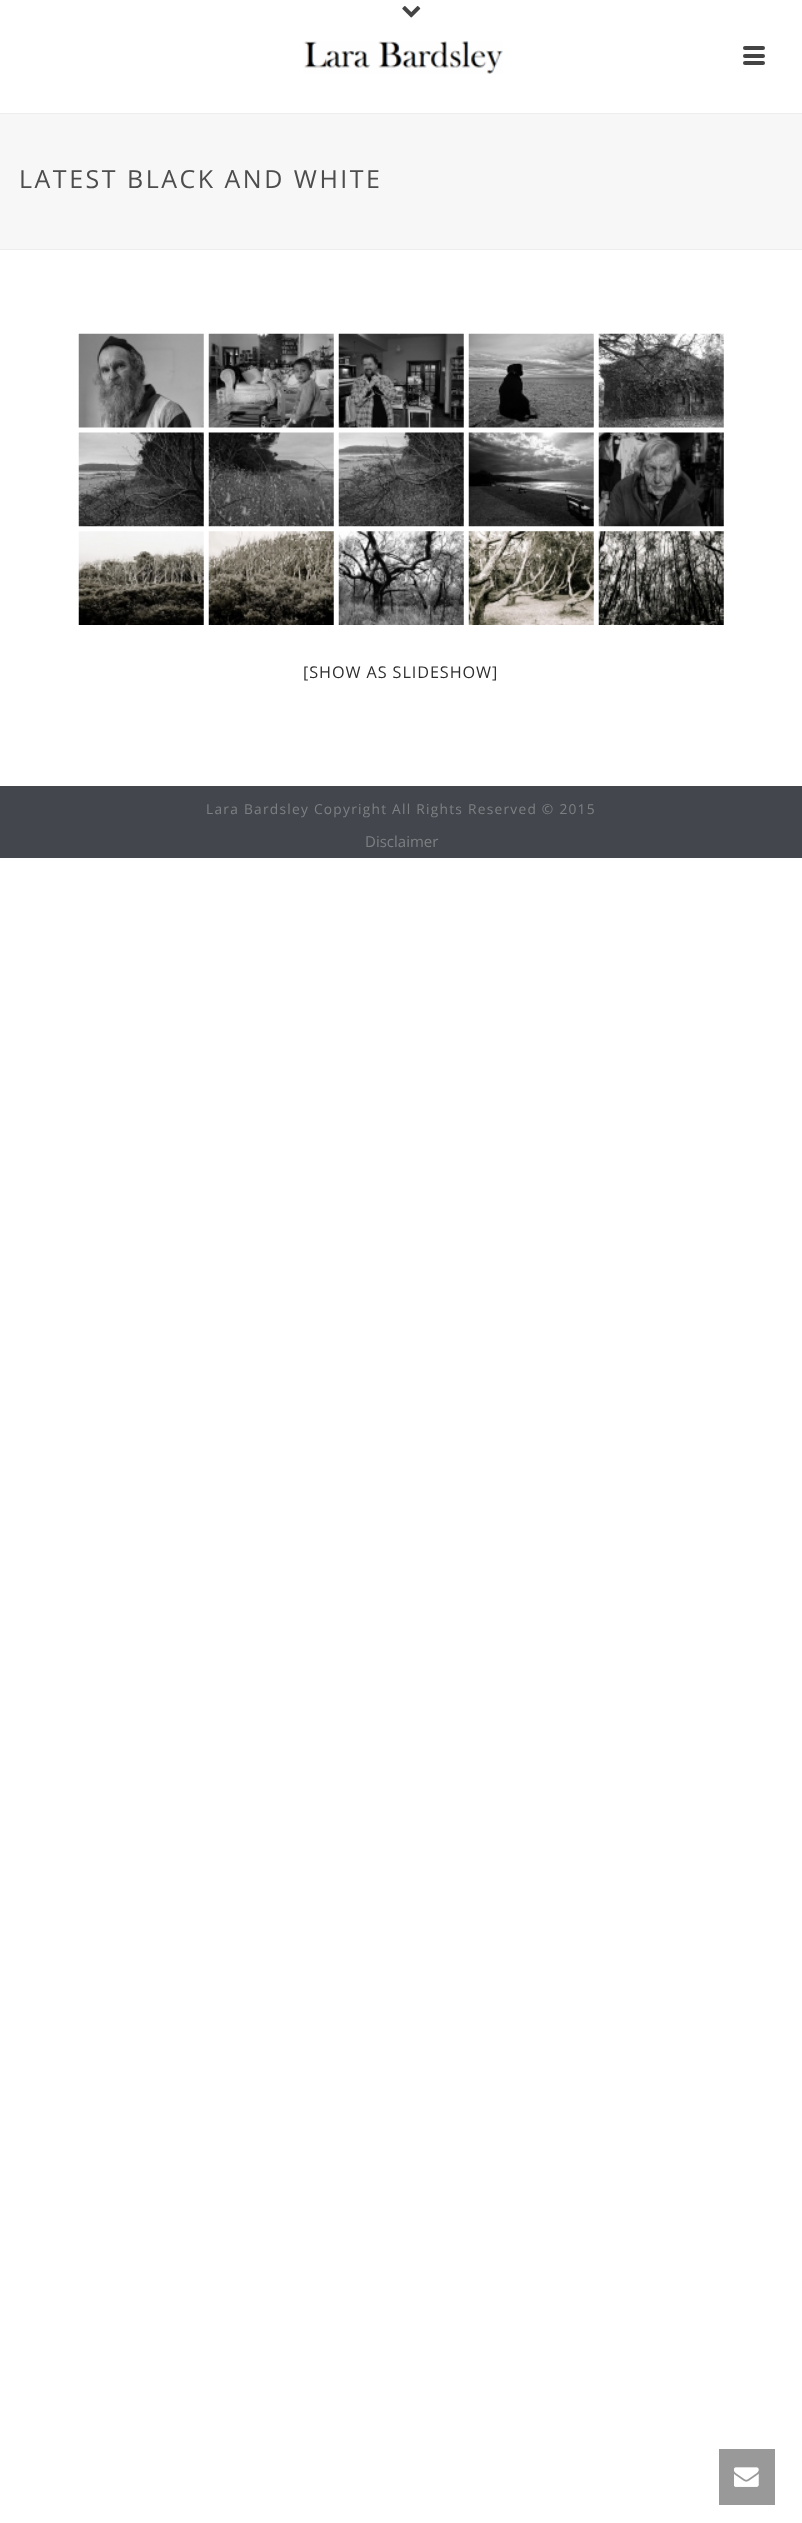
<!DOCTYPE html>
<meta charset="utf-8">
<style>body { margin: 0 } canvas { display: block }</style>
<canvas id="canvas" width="802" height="2523"></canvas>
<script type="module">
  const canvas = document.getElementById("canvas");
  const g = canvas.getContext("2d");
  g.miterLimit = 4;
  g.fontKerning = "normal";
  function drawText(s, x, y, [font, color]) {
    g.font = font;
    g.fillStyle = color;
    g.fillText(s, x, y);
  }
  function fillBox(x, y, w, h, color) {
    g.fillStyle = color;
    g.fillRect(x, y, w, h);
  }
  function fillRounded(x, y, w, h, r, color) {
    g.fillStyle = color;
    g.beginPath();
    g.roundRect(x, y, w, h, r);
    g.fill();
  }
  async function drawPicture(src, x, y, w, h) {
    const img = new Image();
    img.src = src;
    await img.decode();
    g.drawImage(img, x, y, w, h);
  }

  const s1 = ["25px Open Sans", "#4D4D4D"];
  const s2 = ["16.25px Open Sans", "#2E2E2E"];
  const s3 = ["13.75px Open Sans", "#7D8083"];
  const s4 = ["15px Open Sans", "#7D8083"];

  fillBox(0, 0, 802, 2523, "#FFFFFF");
  fillBox(0, 114, 802, 135, "#F7F7F7");
  fillBox(0, 249, 802, 1, "#EDEDED");
  fillBox(0, 113, 802, 1, "#EDEDED");
  await drawPicture("pic1.png", 402, 6, 19, 12);
  await drawPicture("pic2.png", 303, 41, 200, 33);
  fillRounded(743, 46, 22, 4, 2, "#444444");
  fillRounded(743, 54, 22, 4, 2, "#444444");
  fillRounded(743, 61, 22, 4, 2, "#444444");
  g.letterSpacing = "2.5px";
  drawText("LATEST BLACK AND WHITE", 19, 188, s1);
  await drawPicture("pic3.png", 78, 333, 126, 95);
  await drawPicture("pic4.png", 208, 333, 126, 95);
  await drawPicture("pic5.png", 338, 333, 126, 95);
  await drawPicture("pic6.png", 468, 333, 126, 95);
  await drawPicture("pic7.png", 598, 333, 126, 95);
  await drawPicture("pic8.png", 78, 432, 126, 95);
  await drawPicture("pic9.png", 208, 432, 126, 95);
  await drawPicture("pic10.png", 338, 432, 126, 95);
  await drawPicture("pic11.png", 468, 432, 126, 95);
  await drawPicture("pic12.png", 598, 432, 126, 95);
  await drawPicture("pic13.png", 78, 531, 126, 94);
  await drawPicture("pic14.png", 208, 531, 126, 94);
  await drawPicture("pic15.png", 338, 531, 126, 94);
  await drawPicture("pic16.png", 468, 531, 126, 94);
  await drawPicture("pic17.png", 598, 531, 126, 94);
  g.letterSpacing = "0.9px";
  drawText("[SHOW AS SLIDESHOW]", 303, 678, s2);
  fillBox(0, 786, 802, 72, "#43474D");
  g.letterSpacing = "1.25px";
  drawText("Lara Bardsley Copyright All Rights Reserved © 2015", 206, 814, s3);
  g.letterSpacing = "0px";
  drawText("Disclaimer", 365, 847, s4);
  fillBox(719, 2449, 56, 56, "#999999");
  await drawPicture("pic18.png", 734, 2467, 25, 20);
</script>
